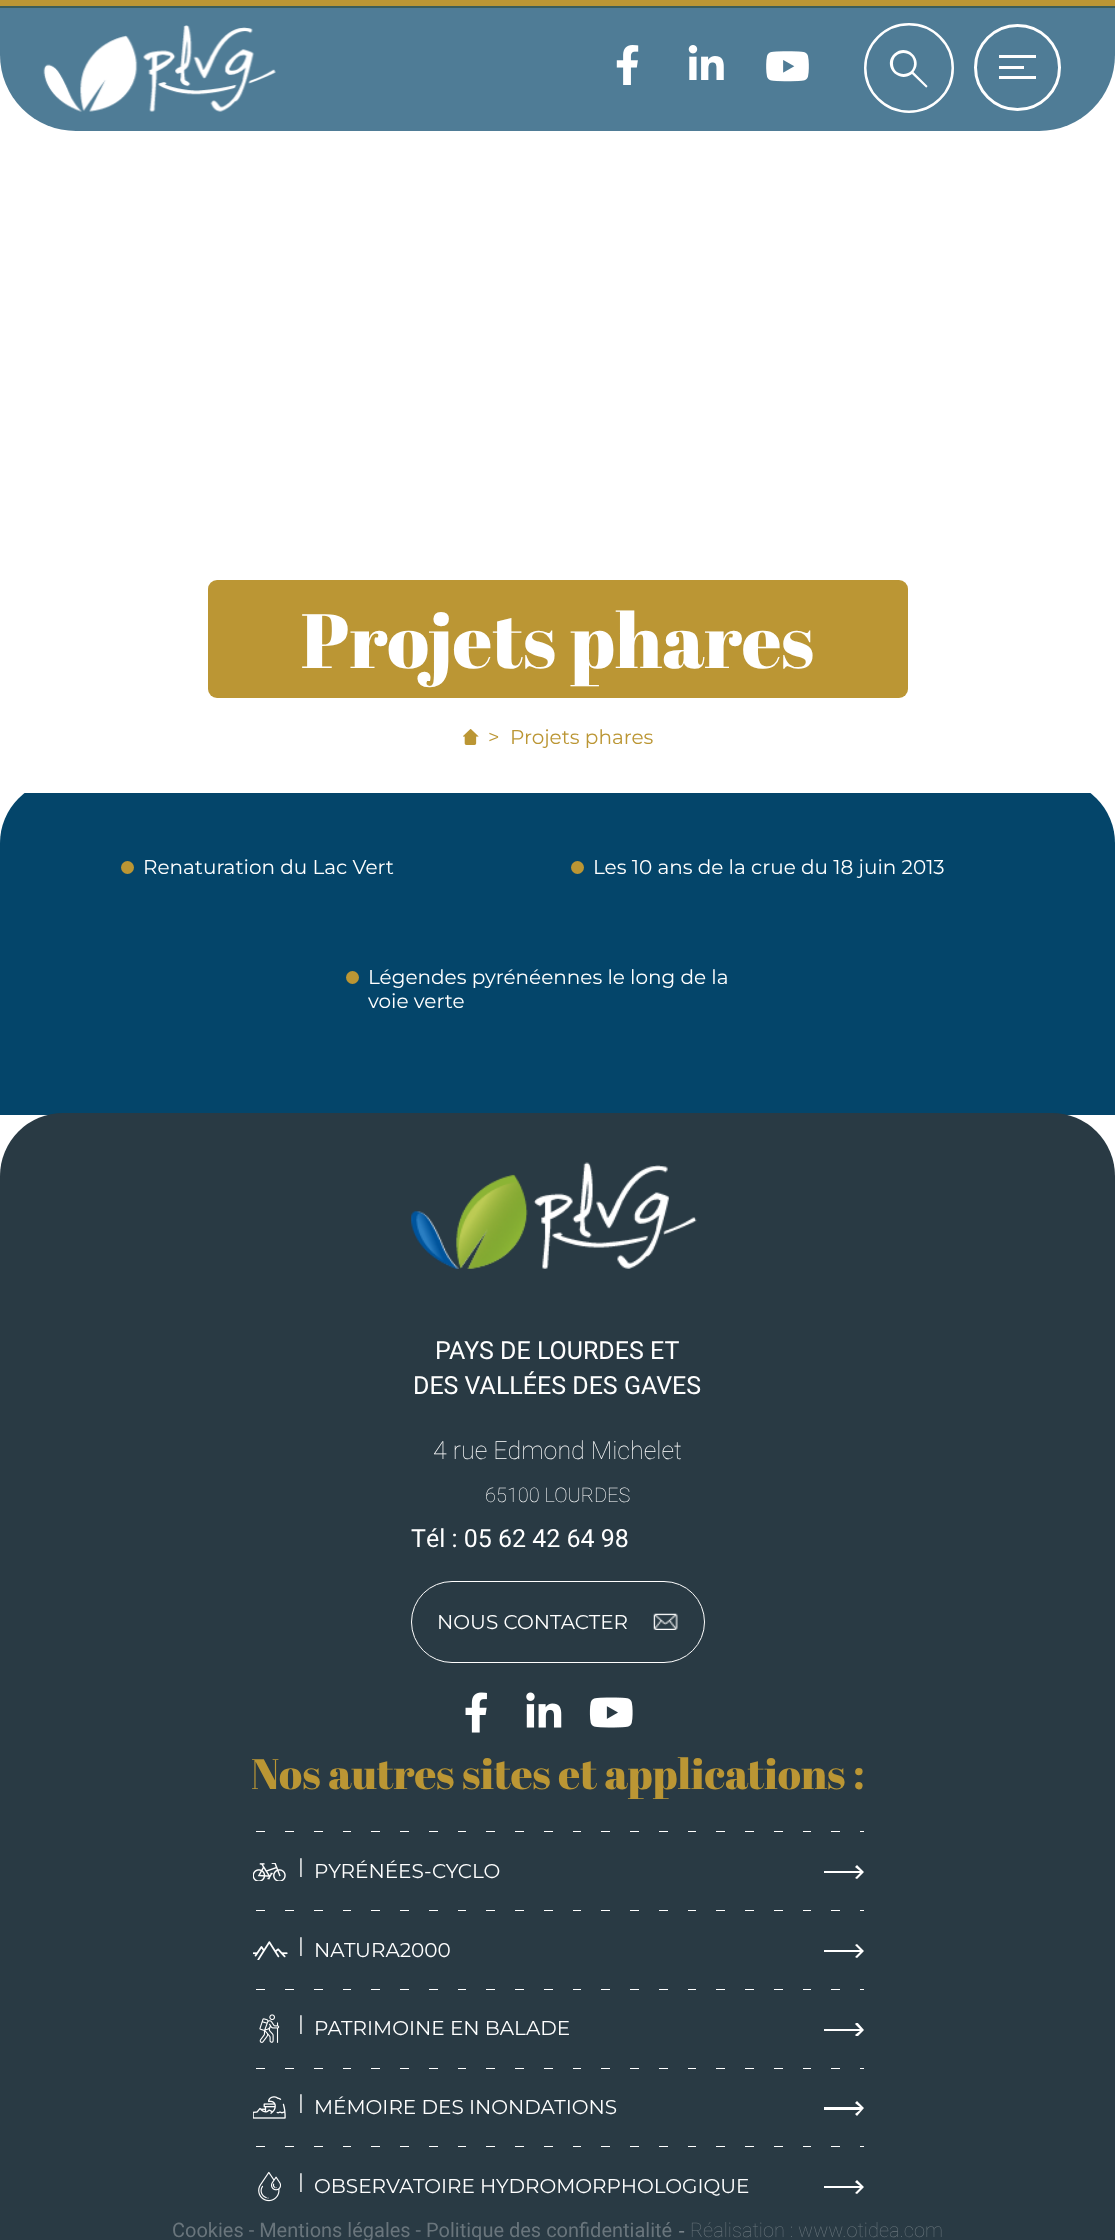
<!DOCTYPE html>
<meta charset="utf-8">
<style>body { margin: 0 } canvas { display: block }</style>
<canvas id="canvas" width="1115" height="2240"></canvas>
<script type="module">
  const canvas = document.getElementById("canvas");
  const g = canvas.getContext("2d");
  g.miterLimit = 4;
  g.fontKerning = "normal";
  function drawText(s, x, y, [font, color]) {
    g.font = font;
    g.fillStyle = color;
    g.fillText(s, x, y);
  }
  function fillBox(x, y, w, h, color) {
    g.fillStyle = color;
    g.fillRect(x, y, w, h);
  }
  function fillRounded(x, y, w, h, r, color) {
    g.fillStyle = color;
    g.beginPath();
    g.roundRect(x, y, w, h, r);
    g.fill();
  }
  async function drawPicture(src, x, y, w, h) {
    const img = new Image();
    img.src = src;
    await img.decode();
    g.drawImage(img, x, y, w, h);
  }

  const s1 = ["76.75px Abril Fatface", "#FFFFFF"];
  const s2 = ["100 20px Montserrat", "#BB9634"];
  const s3 = ["100 20px Montserrat", "#FFFFFF"];
  const s4 = ["25px Roboto", "#FFFFFF"];
  const s5 = ["100 25px Roboto", "#FFFFFF"];
  const s6 = ["100 20px Roboto", "#FFFFFF"];
  const s7 = ["42.5px Abril Fatface", "#BB9634"];
  const s8 = ["20px Roboto", "#69757C"];
  const s9 = ["100 19px Montserrat", "#949DA2"];
  const s10 = ["100 20px Roboto", "#69757C"];

  fillBox(0, 0, 1115, 2240, "#FFFFFF");
  fillBox(0, 6, 1115, 2, "#BB9634");
  g.fillStyle = "rgba(4, 69, 106, 0.7)";
  g.beginPath();
  g.roundRect(0, 0, 1115, 131, [0, 0, 76, 76]);
  g.fill();
  fillBox(0, 0, 1115, 6, "#BB9634");
  await drawPicture("pic1.png", 43, 25, 233, 87);
  await drawPicture("pic2.png", 616, 45, 23, 40);
  await drawPicture("pic3.png", 688, 45, 36, 35);
  await drawPicture("pic4.png", 766, 51, 43, 31);
  g.beginPath();
  g.arc(909, 68, 43.75, 0, Math.PI * 2);
  g.strokeStyle = "#FFFFFF";
  g.lineWidth = 2.5;
  g.stroke();
  g.fillStyle = "#FFFFFF";
  g.beginPath();
  g.moveTo(926, 87.5);
  g.lineTo(912, 74);
  g.bezierCurveTo(898.5, 84.5, 881.5, 65, 894.5, 53.5);
  g.bezierCurveTo(907, 42.5, 924, 59.5, 913.5, 72);
  g.lineTo(927.5, 86);
  g.bezierCurveTo(927.5, 86.5, 927, 87, 926.5, 87.5);
  g.closePath();
  g.moveTo(893, 63.5);
  g.bezierCurveTo(893, 77.5, 914, 77.5, 914, 63.5);
  g.bezierCurveTo(914, 49.5, 893, 49.5, 893, 63.5);
  g.closePath();
  g.fill();
  g.beginPath();
  g.arc(1017.5, 67.5, 42, 0, Math.PI * 2);
  g.lineWidth = 3;
  g.stroke();
  fillBox(999, 55, 37, 3, "#FFFFFF");
  fillBox(999, 66, 25, 3, "#FFFFFF");
  fillBox(999, 76, 37, 3, "#FFFFFF");
  fillRounded(208, 580, 700, 118, 9, "#BB9634");
  drawText("Projets phares", 301, 668, s1);
  g.fillStyle = "#04456A";
  g.beginPath();
  g.roundRect(0, 780, 1115, 335, [63, 63, 0, 0]);
  g.fill();
  fillBox(24, 780, 1067, 13, "#FFFFFF");
  await drawPicture("pic5.png", 463, 729, 16, 16);
  drawText(">", 488, 744, s2);
  drawText("Projets phares", 510, 744, s2);
  g.beginPath();
  g.arc(127.5, 867.5, 6.5, 0, Math.PI * 2);
  g.fill();
  drawText("Renaturation du Lac Vert", 143, 874, s3);
  g.fillStyle = "#BB9634";
  g.beginPath();
  g.arc(577.5, 867.5, 6.5, 0, Math.PI * 2);
  g.fill();
  drawText("Les 10 ans de la crue du 18 juin 2013", 593, 874, s3);
  g.fillStyle = "#BB9634";
  g.beginPath();
  g.arc(352.5, 977.5, 6.5, 0, Math.PI * 2);
  g.fill();
  drawText("Légendes pyrénéennes le long de la", 368, 984, s3);
  drawText("voie verte", 368, 1008, s3);
  g.fillStyle = "#293A44";
  g.beginPath();
  g.roundRect(0, 1113, 1115, 1091, [63, 63, 0, 0]);
  g.fill();
  await drawPicture("pic6.png", 411, 1162, 286, 108);
  drawText("PAYS DE LOURDES ET", 435, 1359, s4);
  drawText("DES VALLÉES DES GAVES", 413, 1394, s4);
  drawText("4 rue Edmond Michelet", 433, 1459, s5);
  drawText("65100 LOURDES", 485, 1502, s6);
  drawText("Tél : 05 62 42 64 98", 411, 1547, s4);
  g.beginPath();
  g.roundRect(411.5, 1581.5, 293, 81, 40.5);
  g.lineWidth = 1;
  g.stroke();
  drawText("NOUS CONTACTER", 437, 1629, s3);
  await drawPicture("pic7.png", 653, 1613, 25, 17);
  await drawPicture("pic8.png", 465, 1692, 22, 41);
  await drawPicture("pic9.png", 526, 1692, 36, 36);
  await drawPicture("pic10.png", 589, 1697, 44, 31);
  drawText("Nos autres sites et applications :", 251, 1789, s7);
  await drawPicture("pic11.png", 256, 1831, 608, 1);
  await drawPicture("pic12.png", 253, 1863, 33, 18);
  drawText("|", 298, 1873, s3);
  drawText("PYRÉNÉES-CYCLO", 314, 1878, s3);
  g.beginPath();
  g.moveTo(857, 1865);
  g.lineTo(855, 1867);
  g.lineTo(860, 1871);
  g.lineTo(824, 1871);
  g.lineTo(824, 1873);
  g.lineTo(860, 1873);
  g.lineTo(855, 1878);
  g.lineTo(857, 1879);
  g.lineTo(864, 1872);
  g.closePath();
  g.fill();
  await drawPicture("pic11.png", 256, 1910, 608, 1);
  await drawPicture("pic13.png", 253, 1941, 35, 19);
  drawText("|", 298, 1952, s3);
  drawText("NATURA2000", 314, 1957, s3);
  g.beginPath();
  g.moveTo(857, 1944);
  g.lineTo(855, 1945);
  g.lineTo(860, 1950);
  g.lineTo(824, 1950);
  g.lineTo(824, 1952);
  g.lineTo(860, 1952);
  g.lineTo(855, 1957);
  g.lineTo(857, 1958);
  g.lineTo(864, 1951);
  g.closePath();
  g.fill();
  await drawPicture("pic11.png", 256, 1989, 608, 1);
  await drawPicture("pic14.png", 259, 2014, 21, 29);
  drawText("|", 298, 2030, s3);
  drawText("PATRIMOINE EN BALADE", 314, 2035, s3);
  g.save();
  g.beginPath();
  g.rect(824, 2023, 40, 13);
  g.clip();
  g.beginPath();
  g.moveTo(857, 2022);
  g.lineTo(855, 2024);
  g.lineTo(860, 2029);
  g.lineTo(824, 2029);
  g.lineTo(824, 2031);
  g.lineTo(860, 2031);
  g.lineTo(855, 2035);
  g.lineTo(857, 2037);
  g.lineTo(864, 2030);
  g.closePath();
  g.fill();
  g.restore();
  await drawPicture("pic11.png", 256, 2068, 608, 1);
  await drawPicture("pic15.png", 253, 2096, 33, 23);
  drawText("|", 298, 2109, s3);
  drawText("MÉMOIRE DES INONDATIONS", 314, 2114, s3);
  g.beginPath();
  g.moveTo(857, 2101);
  g.lineTo(855, 2103);
  g.lineTo(860, 2107);
  g.lineTo(824, 2107);
  g.lineTo(824, 2110);
  g.lineTo(860, 2110);
  g.lineTo(855, 2114);
  g.lineTo(857, 2116);
  g.lineTo(864, 2108);
  g.closePath();
  g.fill();
  await drawPicture("pic11.png", 256, 2146, 608, 1);
  await drawPicture("pic16.png", 258, 2171, 23, 31);
  drawText("|", 298, 2188, s3);
  drawText("OBSERVATOIRE HYDROMORPHOLOGIQUE", 314, 2193, s3);
  g.beginPath();
  g.moveTo(857, 2180);
  g.lineTo(855, 2182);
  g.lineTo(860, 2186);
  g.lineTo(824, 2186);
  g.lineTo(824, 2188);
  g.lineTo(860, 2188);
  g.lineTo(855, 2193);
  g.lineTo(857, 2194);
  g.lineTo(864, 2187);
  g.closePath();
  g.fill();
  fillBox(0, 2204, 1115, 36, "#293A44");
  drawText("Cookies - Mentions légales - Politique des confidentialité", 172, 2237, s8);
  drawText("-", 678, 2237, s9);
  drawText("Réalisation : www.otidea.com", 690, 2237, s10);
</script>
